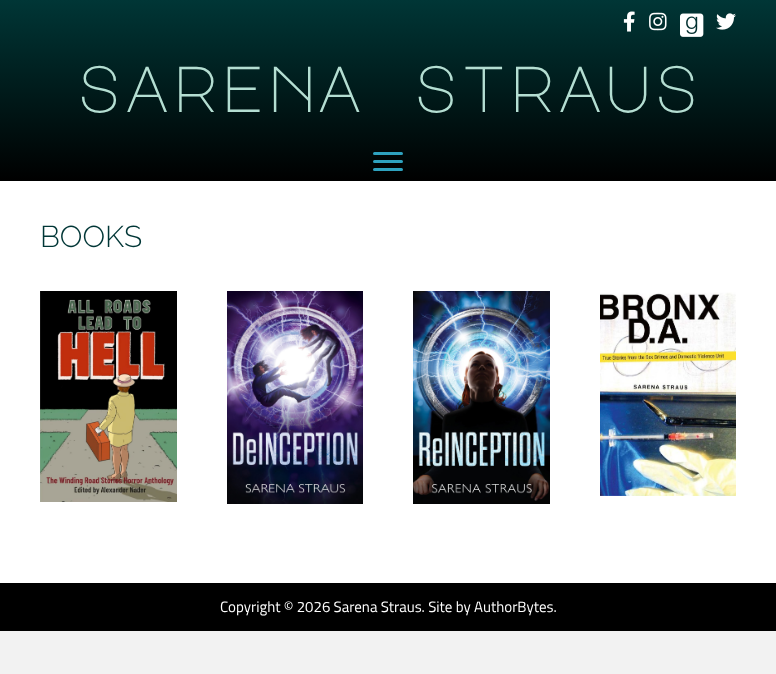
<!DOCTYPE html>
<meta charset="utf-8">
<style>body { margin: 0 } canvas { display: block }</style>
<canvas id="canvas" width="776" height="674"></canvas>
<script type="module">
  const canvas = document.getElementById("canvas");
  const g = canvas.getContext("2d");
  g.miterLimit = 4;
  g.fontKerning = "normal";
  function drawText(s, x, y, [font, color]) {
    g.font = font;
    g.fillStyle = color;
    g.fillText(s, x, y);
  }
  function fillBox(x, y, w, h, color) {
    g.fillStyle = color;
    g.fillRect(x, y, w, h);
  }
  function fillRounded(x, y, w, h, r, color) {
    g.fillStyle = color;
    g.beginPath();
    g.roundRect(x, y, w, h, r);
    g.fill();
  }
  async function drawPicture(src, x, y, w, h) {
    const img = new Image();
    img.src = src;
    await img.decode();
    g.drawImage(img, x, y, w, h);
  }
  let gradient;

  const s1 = ["65px Major Mono Display", "#B4DED2"];
  const s2 = ["100 30px Raleway", "#003636"];
  const s3 = ["15px Titillium Web", "#FFFFFF"];

  fillBox(0, 0, 776, 674, "#F2F2F2");
  gradient = g.createLinearGradient(388, 0, 388, 181);
  gradient.addColorStop(0, "#003636");
  gradient.addColorStop(1, "#000000");
  g.fillStyle = gradient;
  g.fillRect(0, 0, 776, 181);
  await drawPicture("pic1.png", 623, 11, 12, 21);
  await drawPicture("pic2.png", 649, 12, 18, 19);
  await drawPicture("pic3.png", 680, 13, 24, 24);
  await drawPicture("pic4.png", 716, 13, 20, 17);
  drawText("sarena straus", 75, 112, s1);
  fillRounded(373, 160, 30, 3, 1.5, "#2EA2BF");
  fillRounded(373, 152, 30, 3, 1.5, "#2EA2BF");
  fillRounded(373, 168, 30, 3, 1.5, "#2EA2BF");
  fillBox(0, 181, 776, 402, "#FFFFFF");
  drawText("BOOKS", 40, 247, s2);
  await drawPicture("pic5.png", 40, 291, 137, 211);
  await drawPicture("pic6.png", 227, 291, 136, 213);
  await drawPicture("pic7.png", 413, 291, 137, 213);
  await drawPicture("pic8.png", 600, 292, 136, 204);
  fillBox(0, 583, 776, 48, "#000000");
  drawText("Copyright © 2026 Sarena Straus. Site by AuthorBytes.", 220, 612, s3);
</script>
